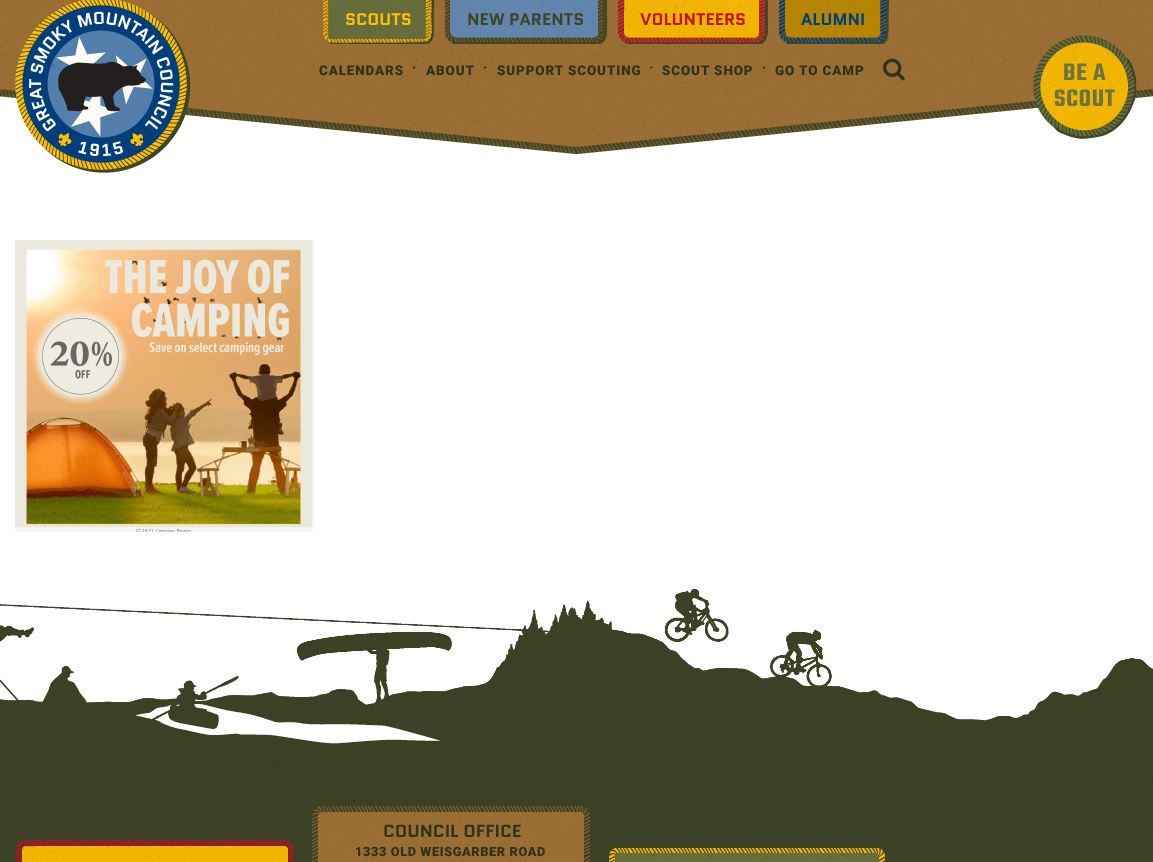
<!DOCTYPE html>
<meta charset="utf-8">
<style>body { margin: 0 } canvas { display: block }</style>
<canvas id="canvas" width="1153" height="862"></canvas>
<script type="module">
  const canvas = document.getElementById("canvas");
  const g = canvas.getContext("2d");
  g.miterLimit = 4;
  g.fontKerning = "normal";
  function drawText(s, x, y, [font, color]) {
    g.font = font;
    g.fillStyle = color;
    g.fillText(s, x, y);
  }
  function fillBox(x, y, w, h, color) {
    g.fillStyle = color;
    g.fillRect(x, y, w, h);
  }
  async function drawPicture(src, x, y, w, h) {
    const img = new Image();
    img.src = src;
    await img.decode();
    g.drawImage(img, x, y, w, h);
  }

  const s1 = ["bold 16.75px Quantico", "#FFC000"];
  const s2 = ["bold 16.75px Quantico", "#3E4527"];
  const s3 = ["bold 16.75px Quantico", "#C21025"];
  const s4 = ["bold 16.75px Quantico", "#003E7F"];
  const s5 = ["900 13.4px Roboto", "#2E331B"];
  const s6 = ["600 26px Teko", "#6B7340"];
  const s7 = ["bold 17.5px Quantico", "#2E331B"];
  const s8 = ["900 12.75px Roboto", "#2E331B"];

  fillBox(0, 0, 1153, 862, "#FFFFFF");
  await drawPicture("pic1.png", 0, 0, 1153, 154);
  await drawPicture("pic2.png", 15, 0, 176, 173);
  await drawPicture("pic3.png", 323, 0, 112, 44);
  await drawPicture("pic4.png", 327, 5, 103, 34);
  drawText("SCOUTS", 345, 25, s1);
  await drawPicture("pic5.png", 445, 0, 163, 44);
  drawText("NEW PARENTS", 467, 25, s2);
  await drawPicture("pic6.png", 618, 0, 150, 44);
  drawText("VOLUNTEERS", 640, 25, s3);
  await drawPicture("pic7.png", 779, 0, 110, 44);
  drawText("ALUMNI", 801, 25, s4);
  g.letterSpacing = "0.9px";
  drawText("CALENDARS", 319, 75, s5);
  drawText("·", 412, 72, s5);
  drawText("ABOUT", 426, 75, s5);
  drawText("·", 483, 72, s5);
  drawText("SUPPORT SCOUTING", 497, 75, s5);
  drawText("·", 649, 72, s5);
  drawText("SCOUT SHOP", 662, 75, s5);
  drawText("·", 762, 72, s5);
  drawText("GO TO CAMP", 775, 75, s5);
  await drawPicture("pic8.png", 883, 58, 22, 23);
  await drawPicture("pic9.png", 1033, 35, 104, 104);
  g.letterSpacing = "0.75px";
  drawText("BE A", 1063, 80, s6);
  drawText("SCOUT", 1054, 106, s6);
  await drawPicture("pic10.png", 15, 240, 300, 292);
  await drawPicture("pic11.png", 0, 589, 1153, 273);
  await drawPicture("pic12.png", 16, 839, 278, 23);
  await drawPicture("pic13.png", 312, 806, 278, 56);
  g.letterSpacing = "0px";
  drawText("COUNCIL OFFICE", 383, 837, s7);
  g.letterSpacing = "0.6px";
  drawText("1333 OLD WEISGARBER ROAD", 355, 856, s8);
  await drawPicture("pic14.png", 609, 848, 276, 14);
</script>
